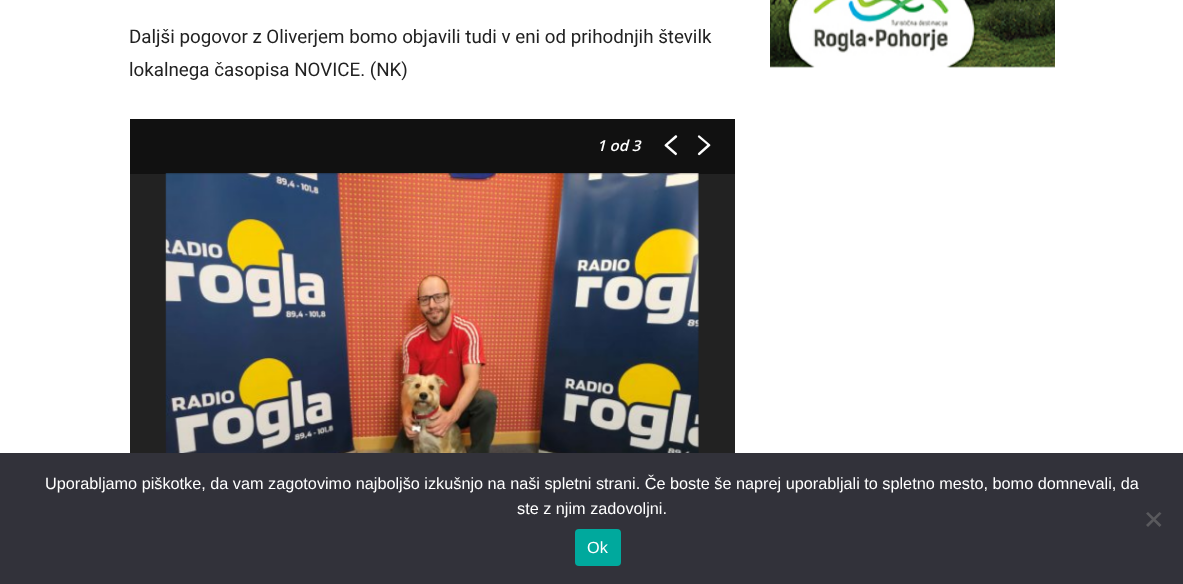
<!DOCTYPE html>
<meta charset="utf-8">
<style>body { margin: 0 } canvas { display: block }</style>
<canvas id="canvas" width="1183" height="584"></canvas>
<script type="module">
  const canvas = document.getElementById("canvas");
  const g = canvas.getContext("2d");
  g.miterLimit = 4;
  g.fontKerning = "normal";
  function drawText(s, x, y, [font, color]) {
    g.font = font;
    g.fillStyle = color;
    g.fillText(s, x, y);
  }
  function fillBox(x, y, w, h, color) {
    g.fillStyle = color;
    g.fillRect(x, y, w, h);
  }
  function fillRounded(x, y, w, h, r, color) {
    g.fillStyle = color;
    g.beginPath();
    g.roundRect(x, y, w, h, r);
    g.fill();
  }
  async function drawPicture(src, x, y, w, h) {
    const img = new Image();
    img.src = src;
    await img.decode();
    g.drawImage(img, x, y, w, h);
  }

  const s1 = ["18.75px Roboto", "#222222"];
  const s2 = ["italic 600 15px Open Sans", "#FFFFFF"];
  const s3 = ["16.25px Liberation Sans", "#FFFFFF"];

  fillBox(0, 0, 1183, 584, "#FFFFFF");
  drawText("Daljši pogovor z Oliverjem bomo objavili tudi v eni od prihodnjih številk", 129, 43, s1);
  drawText("lokalnega časopisa NOVICE. (NK)", 129, 76, s1);
  fillBox(130, 174, 605, 279, "#222222");
  fillBox(130, 119, 605, 55, "#111111");
  drawText("1 od 3", 597, 151, s2);
  await drawPicture("pic1.png", 664, 135, 14, 21);
  await drawPicture("pic2.png", 697, 135, 14, 21);
  await drawPicture("pic3.png", 165, 173, 534, 280);
  await drawPicture("pic4.png", 770, 0, 285, 68);
  fillBox(0, 453, 1183, 131, "#32323A");
  drawText("Uporabljamo piškotke, da vam zagotovimo najboljšo izkušnjo na naši spletni strani. Če boste še naprej uporabljali to spletno mesto, bomo domnevali, da", 45, 489, s3);
  drawText("ste z njim zadovoljni.", 517, 514, s3);
  g.fillStyle = "#59595D";
  g.beginPath();
  g.moveTo(1159.5, 512);
  g.lineTo(1161.5, 513.5);
  g.lineTo(1148, 527);
  g.lineTo(1146, 525);
  g.closePath();
  g.fill();
  g.beginPath();
  g.moveTo(1146, 513.5);
  g.lineTo(1148, 512);
  g.lineTo(1161.5, 525);
  g.lineTo(1159.5, 527);
  g.closePath();
  g.fill();
  fillRounded(575, 529, 46, 37, 4, "#00A99D");
  drawText("Ok", 587, 553, s3);
</script>
